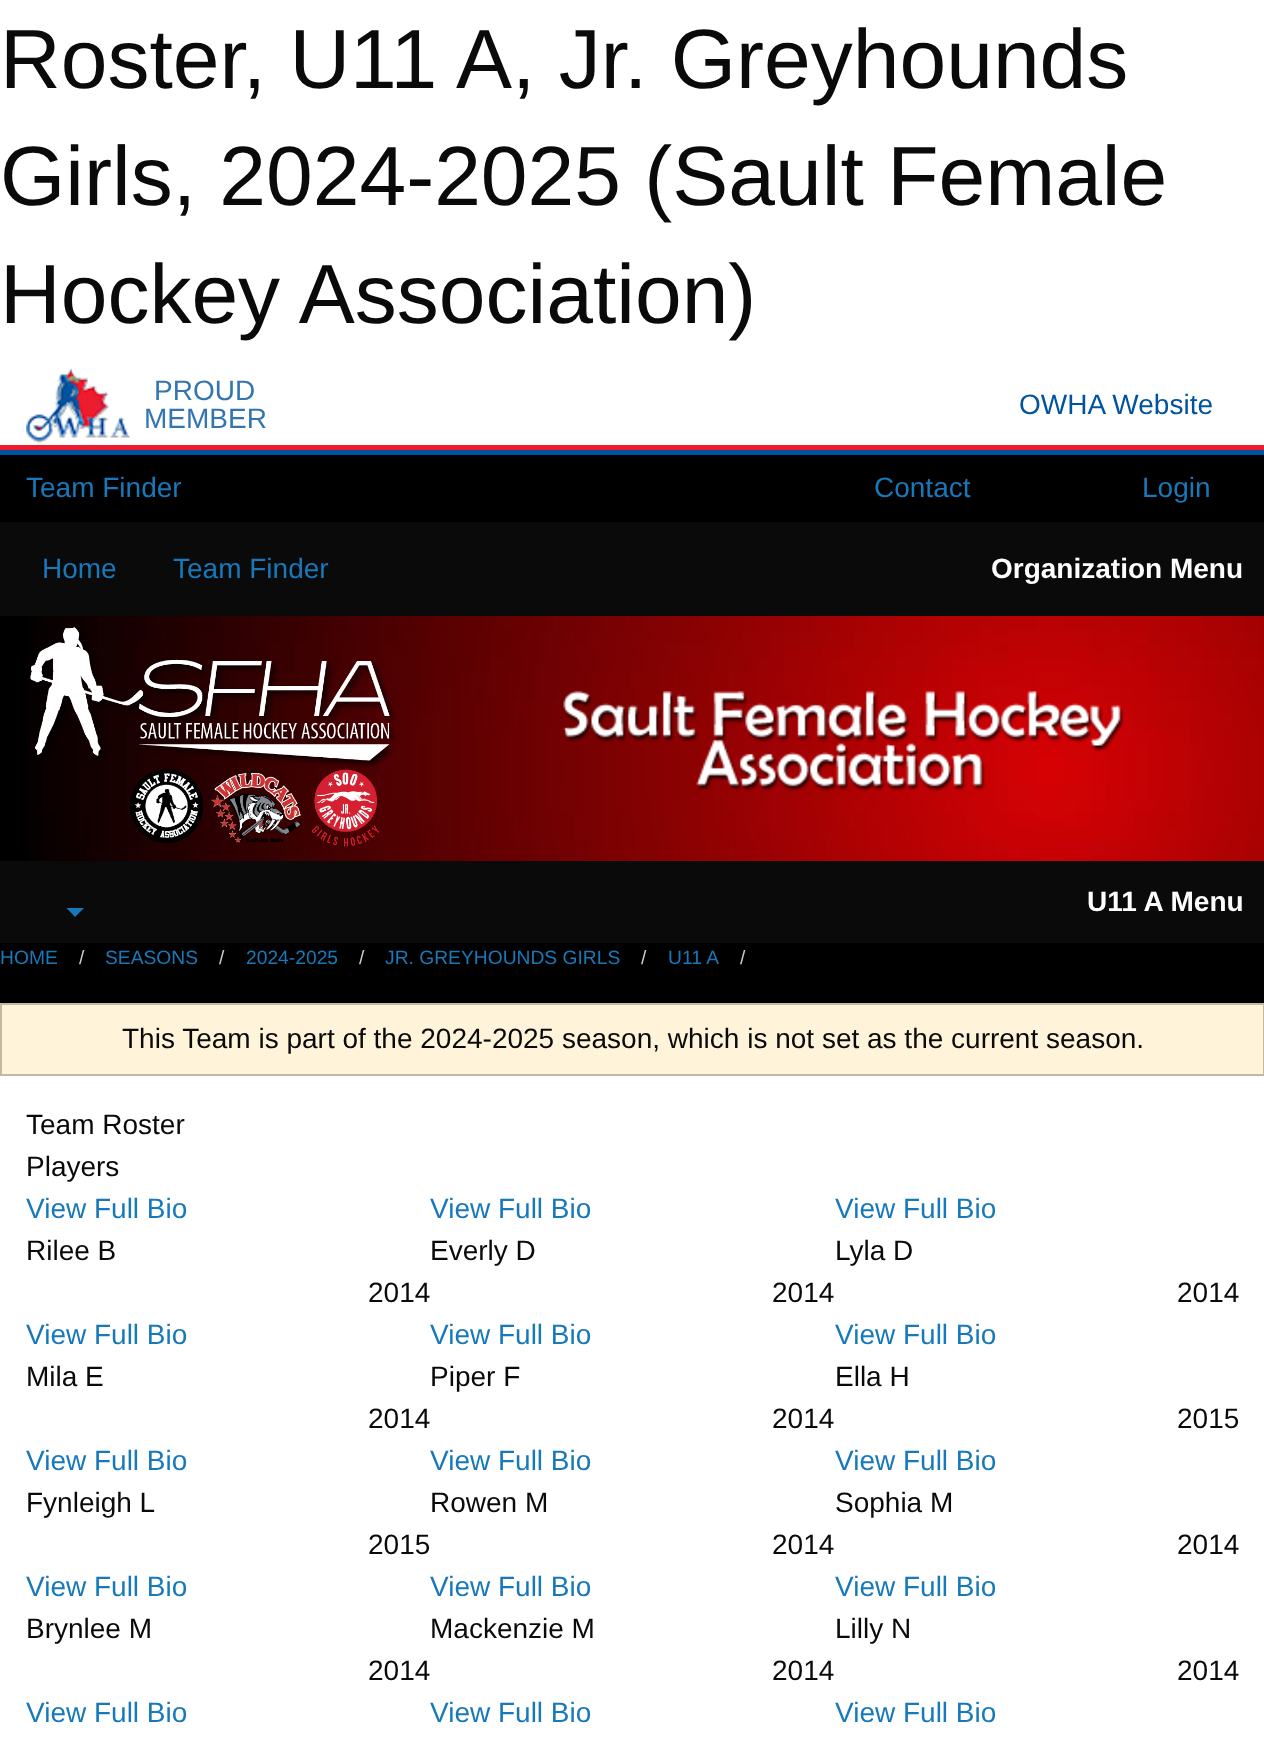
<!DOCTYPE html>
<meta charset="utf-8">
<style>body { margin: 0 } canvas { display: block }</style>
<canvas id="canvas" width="1264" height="1752"></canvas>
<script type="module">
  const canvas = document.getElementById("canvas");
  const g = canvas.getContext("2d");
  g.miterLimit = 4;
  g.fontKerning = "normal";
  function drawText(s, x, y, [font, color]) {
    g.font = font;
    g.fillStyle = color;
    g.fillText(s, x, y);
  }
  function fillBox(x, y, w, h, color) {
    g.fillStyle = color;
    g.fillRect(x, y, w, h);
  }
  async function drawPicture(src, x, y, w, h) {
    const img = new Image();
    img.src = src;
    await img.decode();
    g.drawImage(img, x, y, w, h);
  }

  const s1 = ["84px Liberation Sans", "#0A0A0A"];
  const s2 = ["28px Liberation Sans", "#3375B2"];
  const s3 = ["28px Liberation Sans", "#00539F"];
  const s4 = ["28px Liberation Sans", "#1779BA"];
  const s5 = ["bold 28px Liberation Sans", "#FEFEFE"];
  const s6 = ["19.25px Liberation Sans", "#1779BA"];
  const s7 = ["19.25px Liberation Sans", "#CACACA"];
  const s8 = ["28px Liberation Sans", "#0A0A0A"];

  fillBox(0, 0, 1264, 1752, "#FFFFFF");
  drawText("Roster, U11 A, Jr. Greyhounds", 0, 88, s1);
  drawText("Girls, 2024-2025 (Sault Female", 0, 205, s1);
  drawText("Hockey Association)", 0, 323, s1);
  await drawPicture("pic1.png", 26, 367, 104, 76);
  drawText("PROUD", 154, 400, s2);
  drawText("MEMBER", 144, 428, s2);
  drawText("OWHA Website", 1019, 414, s3);
  fillBox(0, 445, 1264, 5, "#ED1B2D");
  fillBox(0, 450, 1264, 5, "#00539F");
  fillBox(0, 455, 1264, 548, "#000000");
  drawText("Team Finder", 26, 497, s4);
  drawText("Contact", 874, 497, s4);
  drawText("Login", 1142, 497, s4);
  fillBox(0, 522, 1264, 94, "#0A0A0A");
  drawText("Home", 42, 578, s4);
  drawText("Team Finder", 173, 578, s4);
  drawText("Organization Menu", 991, 578, s5);
  await drawPicture("pic2.png", 28, 616, 1236, 245);
  await drawPicture("pic3.png", 30, 627, 367, 220);
  await drawPicture("pic4.png", 563, 690, 561, 102);
  fillBox(0, 861, 1264, 82, "#0A0A0A");
  g.fillStyle = "#1779BA";
  g.beginPath();
  g.moveTo(66.5, 908);
  g.lineTo(84, 908);
  g.lineTo(75, 917);
  g.closePath();
  g.fill();
  drawText("U11 A Menu", 1087, 911, s5);
  drawText("HOME", 0, 964, s6);
  drawText("/", 79, 964, s7);
  drawText("SEASONS", 105, 964, s6);
  drawText("/", 219, 964, s7);
  drawText("2024-2025", 246, 964, s6);
  drawText("/", 359, 964, s7);
  drawText("JR. GREYHOUNDS GIRLS", 385, 964, s6);
  drawText("/", 641, 964, s7);
  drawText("U11 A", 668, 964, s6);
  drawText("/", 740, 964, s7);
  g.fillStyle = "#FFF3D9";
  g.beginPath();
  g.rect(1, 1004, 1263, 71);
  g.fill();
  g.strokeStyle = "#C2B9A5";
  g.lineWidth = 2;
  g.stroke();
  drawText("This Team is part of the 2024-2025 season, which is not set as the current season.", 122, 1048, s8);
  drawText("Team Roster", 26, 1134, s8);
  drawText("Players", 26, 1176, s8);
  drawText("View Full Bio", 26, 1218, s4);
  drawText("Rilee B", 26, 1260, s8);
  drawText("2014", 368, 1302, s8);
  drawText("View Full Bio", 430, 1218, s4);
  drawText("Everly D", 430, 1260, s8);
  drawText("2014", 772, 1302, s8);
  drawText("View Full Bio", 835, 1218, s4);
  drawText("Lyla D", 835, 1260, s8);
  drawText("2014", 1177, 1302, s8);
  drawText("View Full Bio", 26, 1344, s4);
  drawText("Mila E", 26, 1386, s8);
  drawText("2014", 368, 1428, s8);
  drawText("View Full Bio", 430, 1344, s4);
  drawText("Piper F", 430, 1386, s8);
  drawText("2014", 772, 1428, s8);
  drawText("View Full Bio", 835, 1344, s4);
  drawText("Ella H", 835, 1386, s8);
  drawText("2015", 1177, 1428, s8);
  drawText("View Full Bio", 26, 1470, s4);
  drawText("Fynleigh L", 26, 1512, s8);
  drawText("2015", 368, 1554, s8);
  drawText("View Full Bio", 430, 1470, s4);
  drawText("Rowen M", 430, 1512, s8);
  drawText("2014", 772, 1554, s8);
  drawText("View Full Bio", 835, 1470, s4);
  drawText("Sophia M", 835, 1512, s8);
  drawText("2014", 1177, 1554, s8);
  drawText("View Full Bio", 26, 1596, s4);
  drawText("Brynlee M", 26, 1638, s8);
  drawText("2014", 368, 1680, s8);
  drawText("View Full Bio", 430, 1596, s4);
  drawText("Mackenzie M", 430, 1638, s8);
  drawText("2014", 772, 1680, s8);
  drawText("View Full Bio", 835, 1596, s4);
  drawText("Lilly N", 835, 1638, s8);
  drawText("2014", 1177, 1680, s8);
  drawText("View Full Bio", 26, 1722, s4);
  drawText("View Full Bio", 430, 1722, s4);
  drawText("View Full Bio", 835, 1722, s4);
</script>
